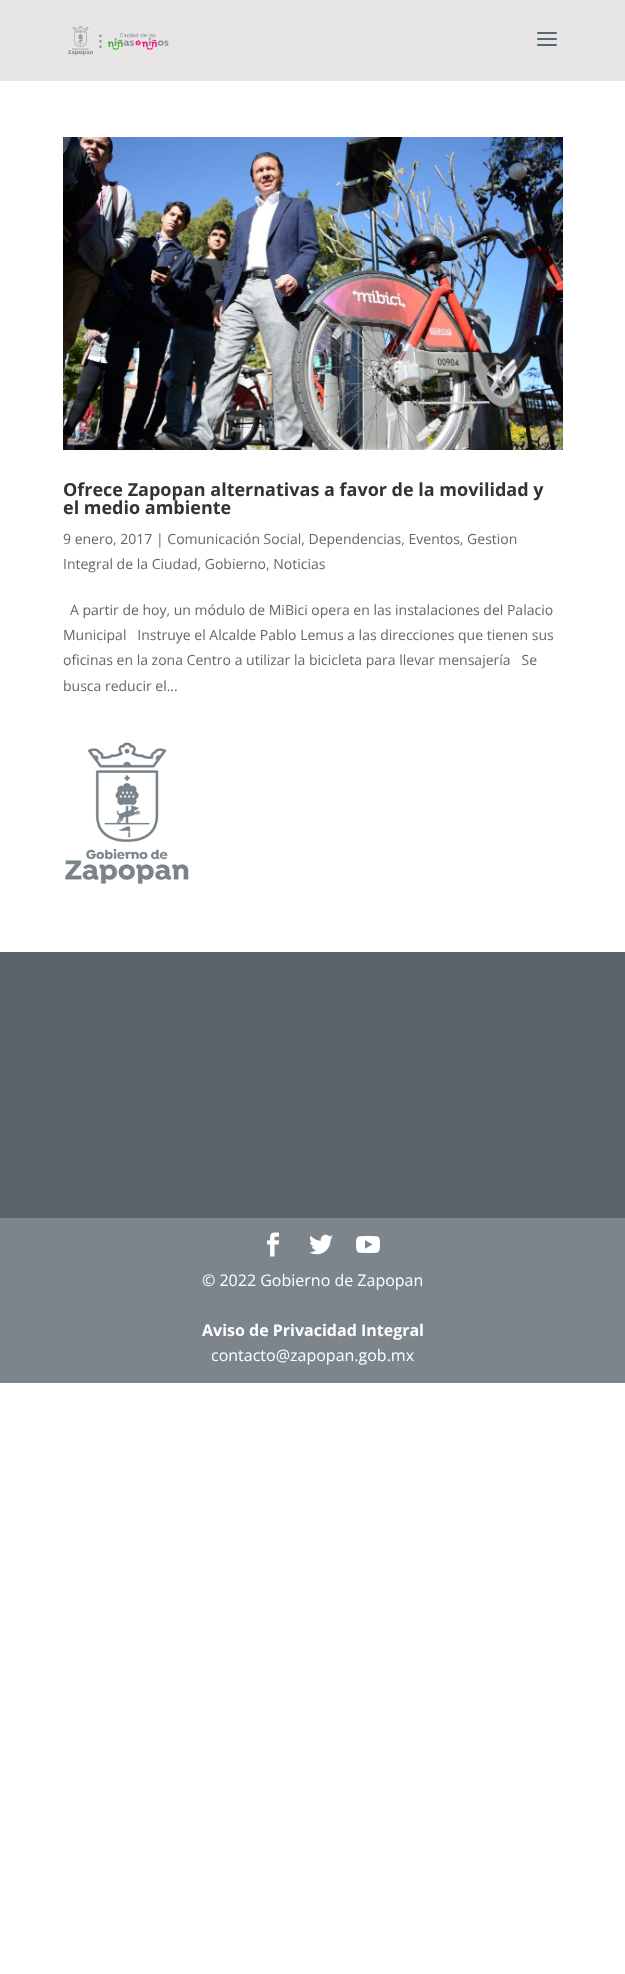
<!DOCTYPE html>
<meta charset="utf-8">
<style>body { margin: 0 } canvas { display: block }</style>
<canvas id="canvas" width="625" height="1974"></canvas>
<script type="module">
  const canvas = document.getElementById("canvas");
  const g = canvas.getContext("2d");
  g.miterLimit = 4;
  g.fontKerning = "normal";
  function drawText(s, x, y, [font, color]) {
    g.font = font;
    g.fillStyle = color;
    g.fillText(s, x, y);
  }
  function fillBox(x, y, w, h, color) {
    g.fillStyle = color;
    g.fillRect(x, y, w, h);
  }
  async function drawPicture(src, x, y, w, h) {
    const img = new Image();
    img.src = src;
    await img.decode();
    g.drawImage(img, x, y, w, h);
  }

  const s1 = ["bold 18px Open Sans", "#333333"];
  const s2 = ["14px Open Sans", "#666666"];
  const s3 = ["16px Open Sans", "#FFFFFF"];
  const s4 = ["bold 16px Open Sans", "#FFFFFF"];

  fillBox(0, 0, 625, 1974, "#FFFFFF");
  fillBox(0, 80, 625, 1, "#E6E6E6");
  fillBox(0, 0, 625, 80, "#E7E5E5");
  await drawPicture("pic1.png", 68, 26, 101, 30);
  await drawPicture("pic2.png", 537, 32, 20, 14);
  await drawPicture("pic3.png", 63, 137, 500, 313);
  drawText("Ofrece Zapopan alternativas a favor de la movilidad y", 63, 496, s1);
  drawText("el medio ambiente", 63, 514, s1);
  drawText("9 enero, 2017 | Comunicación Social, Dependencias, Eventos, Gestion", 63, 544, s2);
  drawText("Integral de la Ciudad, Gobierno, Noticias", 63, 569, s2);
  drawText("A partir de hoy, un módulo de MiBici opera en las instalaciones del Palacio", 70, 615, s2);
  drawText("Municipal   Instruye el Alcalde Pablo Lemus a las direcciones que tienen sus", 63, 640, s2);
  drawText("oficinas en la zona Centro a utilizar la bicicleta para llevar mensajería   Se", 63, 665, s2);
  drawText("busca reducir el...", 63, 691, s2);
  await drawPicture("pic4.png", 65, 742, 124, 142);
  fillBox(0, 952, 625, 266, "#5C6368");
  fillBox(0, 1218, 625, 165, "#7C858C");
  await drawPicture("pic5.png", 267, 1232, 12, 25);
  await drawPicture("pic6.png", 309, 1234, 24, 21);
  await drawPicture("pic7.png", 356, 1236, 24, 17);
  drawText("© 2022 Gobierno de Zapopan", 202, 1286, s3);
  drawText("Aviso de Privacidad Integral", 202, 1336, s4);
  drawText("contacto@zapopan.gob.mx", 211, 1361, s3);
</script>
